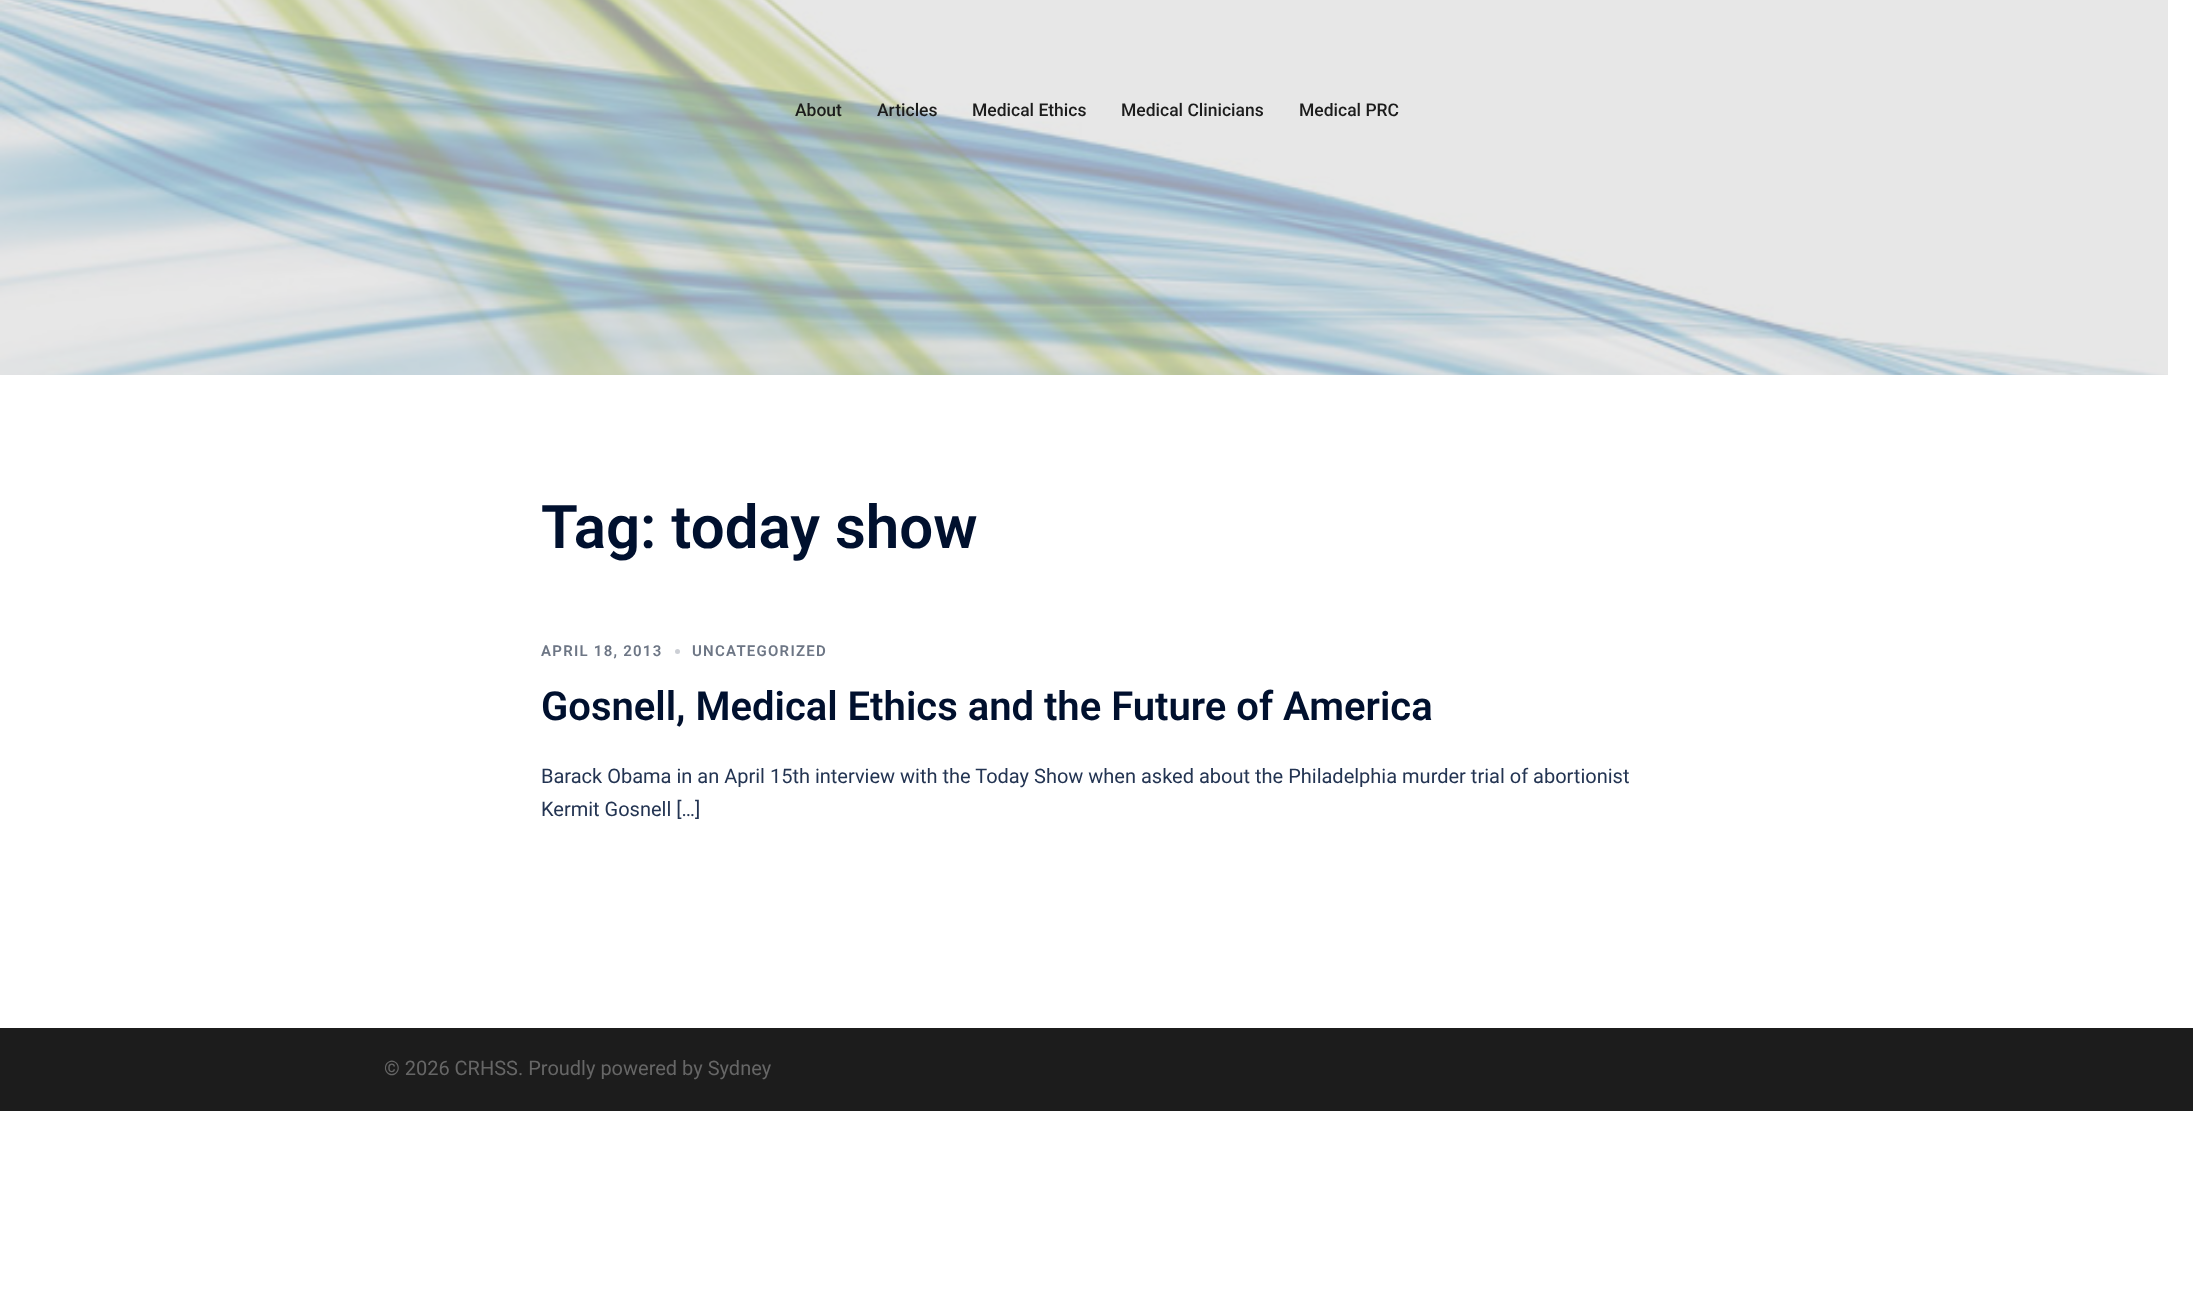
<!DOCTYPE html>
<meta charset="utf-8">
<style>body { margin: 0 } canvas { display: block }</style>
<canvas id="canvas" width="2193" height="1289"></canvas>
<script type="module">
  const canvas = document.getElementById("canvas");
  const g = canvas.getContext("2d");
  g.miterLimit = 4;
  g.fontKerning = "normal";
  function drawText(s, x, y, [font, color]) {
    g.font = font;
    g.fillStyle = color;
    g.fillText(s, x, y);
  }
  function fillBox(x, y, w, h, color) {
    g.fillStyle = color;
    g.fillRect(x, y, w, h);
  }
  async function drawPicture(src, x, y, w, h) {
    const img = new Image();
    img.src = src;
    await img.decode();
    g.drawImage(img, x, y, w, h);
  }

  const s1 = ["500 17.5px Roboto", "#1C1C1C"];
  const s2 = ["600 60px Roboto", "#00102E"];
  const s3 = ["600 15px Roboto", "#6D7685"];
  const s4 = ["600 40px Roboto", "#00102E"];
  const s5 = ["20px Roboto", "#233452"];
  const s6 = ["20px Roboto", "#666666"];

  fillBox(0, 0, 2193, 1289, "#FFFFFF");
  await drawPicture("pic1.png", 0, 0, 2168, 375);
  drawText("About", 795, 116, s1);
  drawText("Articles", 877, 116, s1);
  drawText("Medical Ethics", 972, 116, s1);
  drawText("Medical Clinicians", 1121, 116, s1);
  drawText("Medical PRC", 1299, 116, s1);
  drawText("Tag: today show", 541, 548, s2);
  g.letterSpacing = "1.25px";
  drawText("APRIL 18, 2013", 541, 656, s3);
  g.fillStyle = "#CCCFD5";
  g.beginPath();
  g.arc(677.5, 651.5, 2.5, 0, Math.PI * 2);
  g.fill();
  drawText("UNCATEGORIZED", 692, 656, s3);
  g.letterSpacing = "0px";
  drawText("Gosnell, Medical Ethics and the Future of America", 541, 720, s4);
  drawText("Barack Obama in an April 15th interview with the Today Show when asked about the Philadelphia murder trial of abortionist", 541, 783, s5);
  drawText("Kermit Gosnell […]", 541, 816, s5);
  fillBox(0, 1028, 2193, 83, "#1C1C1C");
  drawText("© 2026 CRHSS. Proudly powered by Sydney", 384, 1075, s6);
</script>
